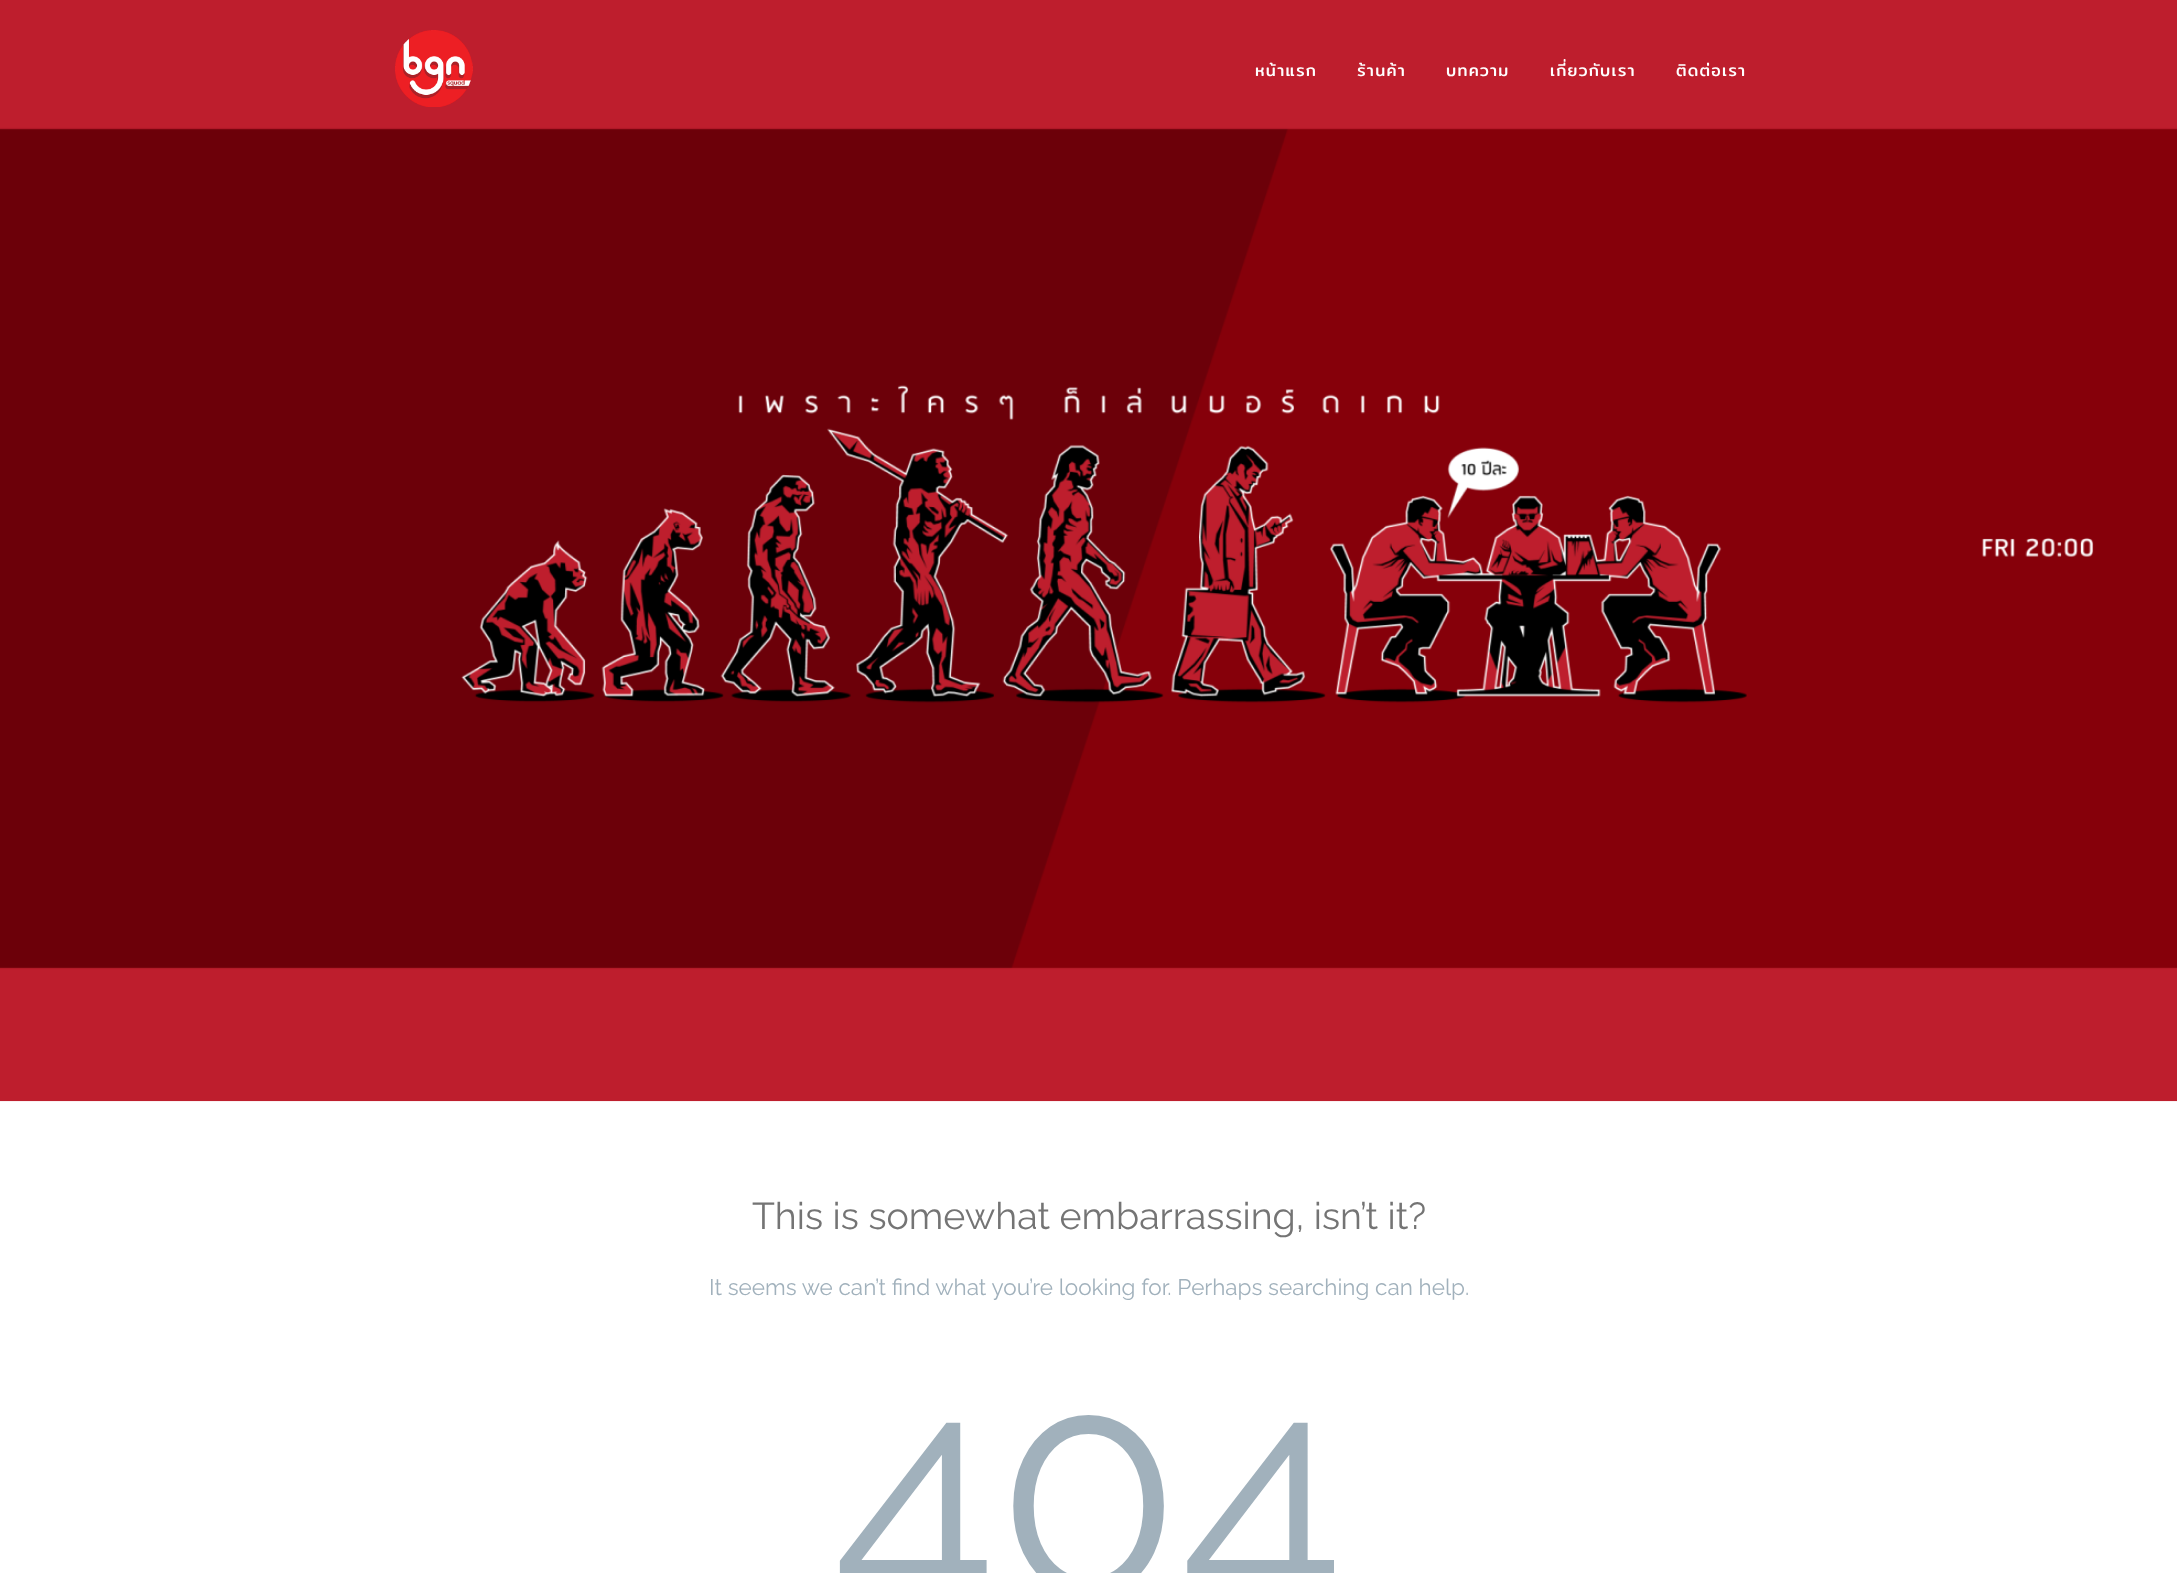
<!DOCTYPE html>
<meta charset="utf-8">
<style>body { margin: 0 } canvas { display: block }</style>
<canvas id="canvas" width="2177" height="1573"></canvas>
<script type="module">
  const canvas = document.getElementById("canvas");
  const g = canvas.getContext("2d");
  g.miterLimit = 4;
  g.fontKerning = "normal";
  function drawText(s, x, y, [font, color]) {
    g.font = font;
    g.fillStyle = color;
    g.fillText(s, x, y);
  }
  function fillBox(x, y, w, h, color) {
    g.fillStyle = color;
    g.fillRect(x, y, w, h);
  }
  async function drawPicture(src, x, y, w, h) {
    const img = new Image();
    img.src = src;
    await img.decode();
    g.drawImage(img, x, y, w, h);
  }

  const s1 = ["16.25px Mitr", "#FFFFFF"];
  const s2 = ["37.5px Raleway", "#747474"];
  const s3 = ["22.5px Raleway", "#A1B1BC"];
  const s4 = ["300px Raleway", "#A1B1BC"];

  fillBox(0, 0, 2177, 1573, "#FFFFFF");
  await drawPicture("pic1.png", 0, 0, 2177, 1102);
  await drawPicture("pic2.png", 395, 30, 78, 77);
  g.letterSpacing = "1.25px";
  drawText("หน้าแรก", 1255, 76, s1);
  drawText("ร้านค้า", 1357, 76, s1);
  drawText("บทความ", 1446, 76, s1);
  drawText("เกี่ยวกับเรา", 1550, 76, s1);
  drawText("ติดต่อเรา", 1676, 76, s1);
  g.letterSpacing = "0px";
  drawText("This is somewhat embarrassing, isn’t it?", 752, 1229, s2);
  drawText("It seems we can’t find what you’re looking for. Perhaps searching can help.", 709, 1295, s3);
  drawText("404", 833, 1594, s4);
</script>
